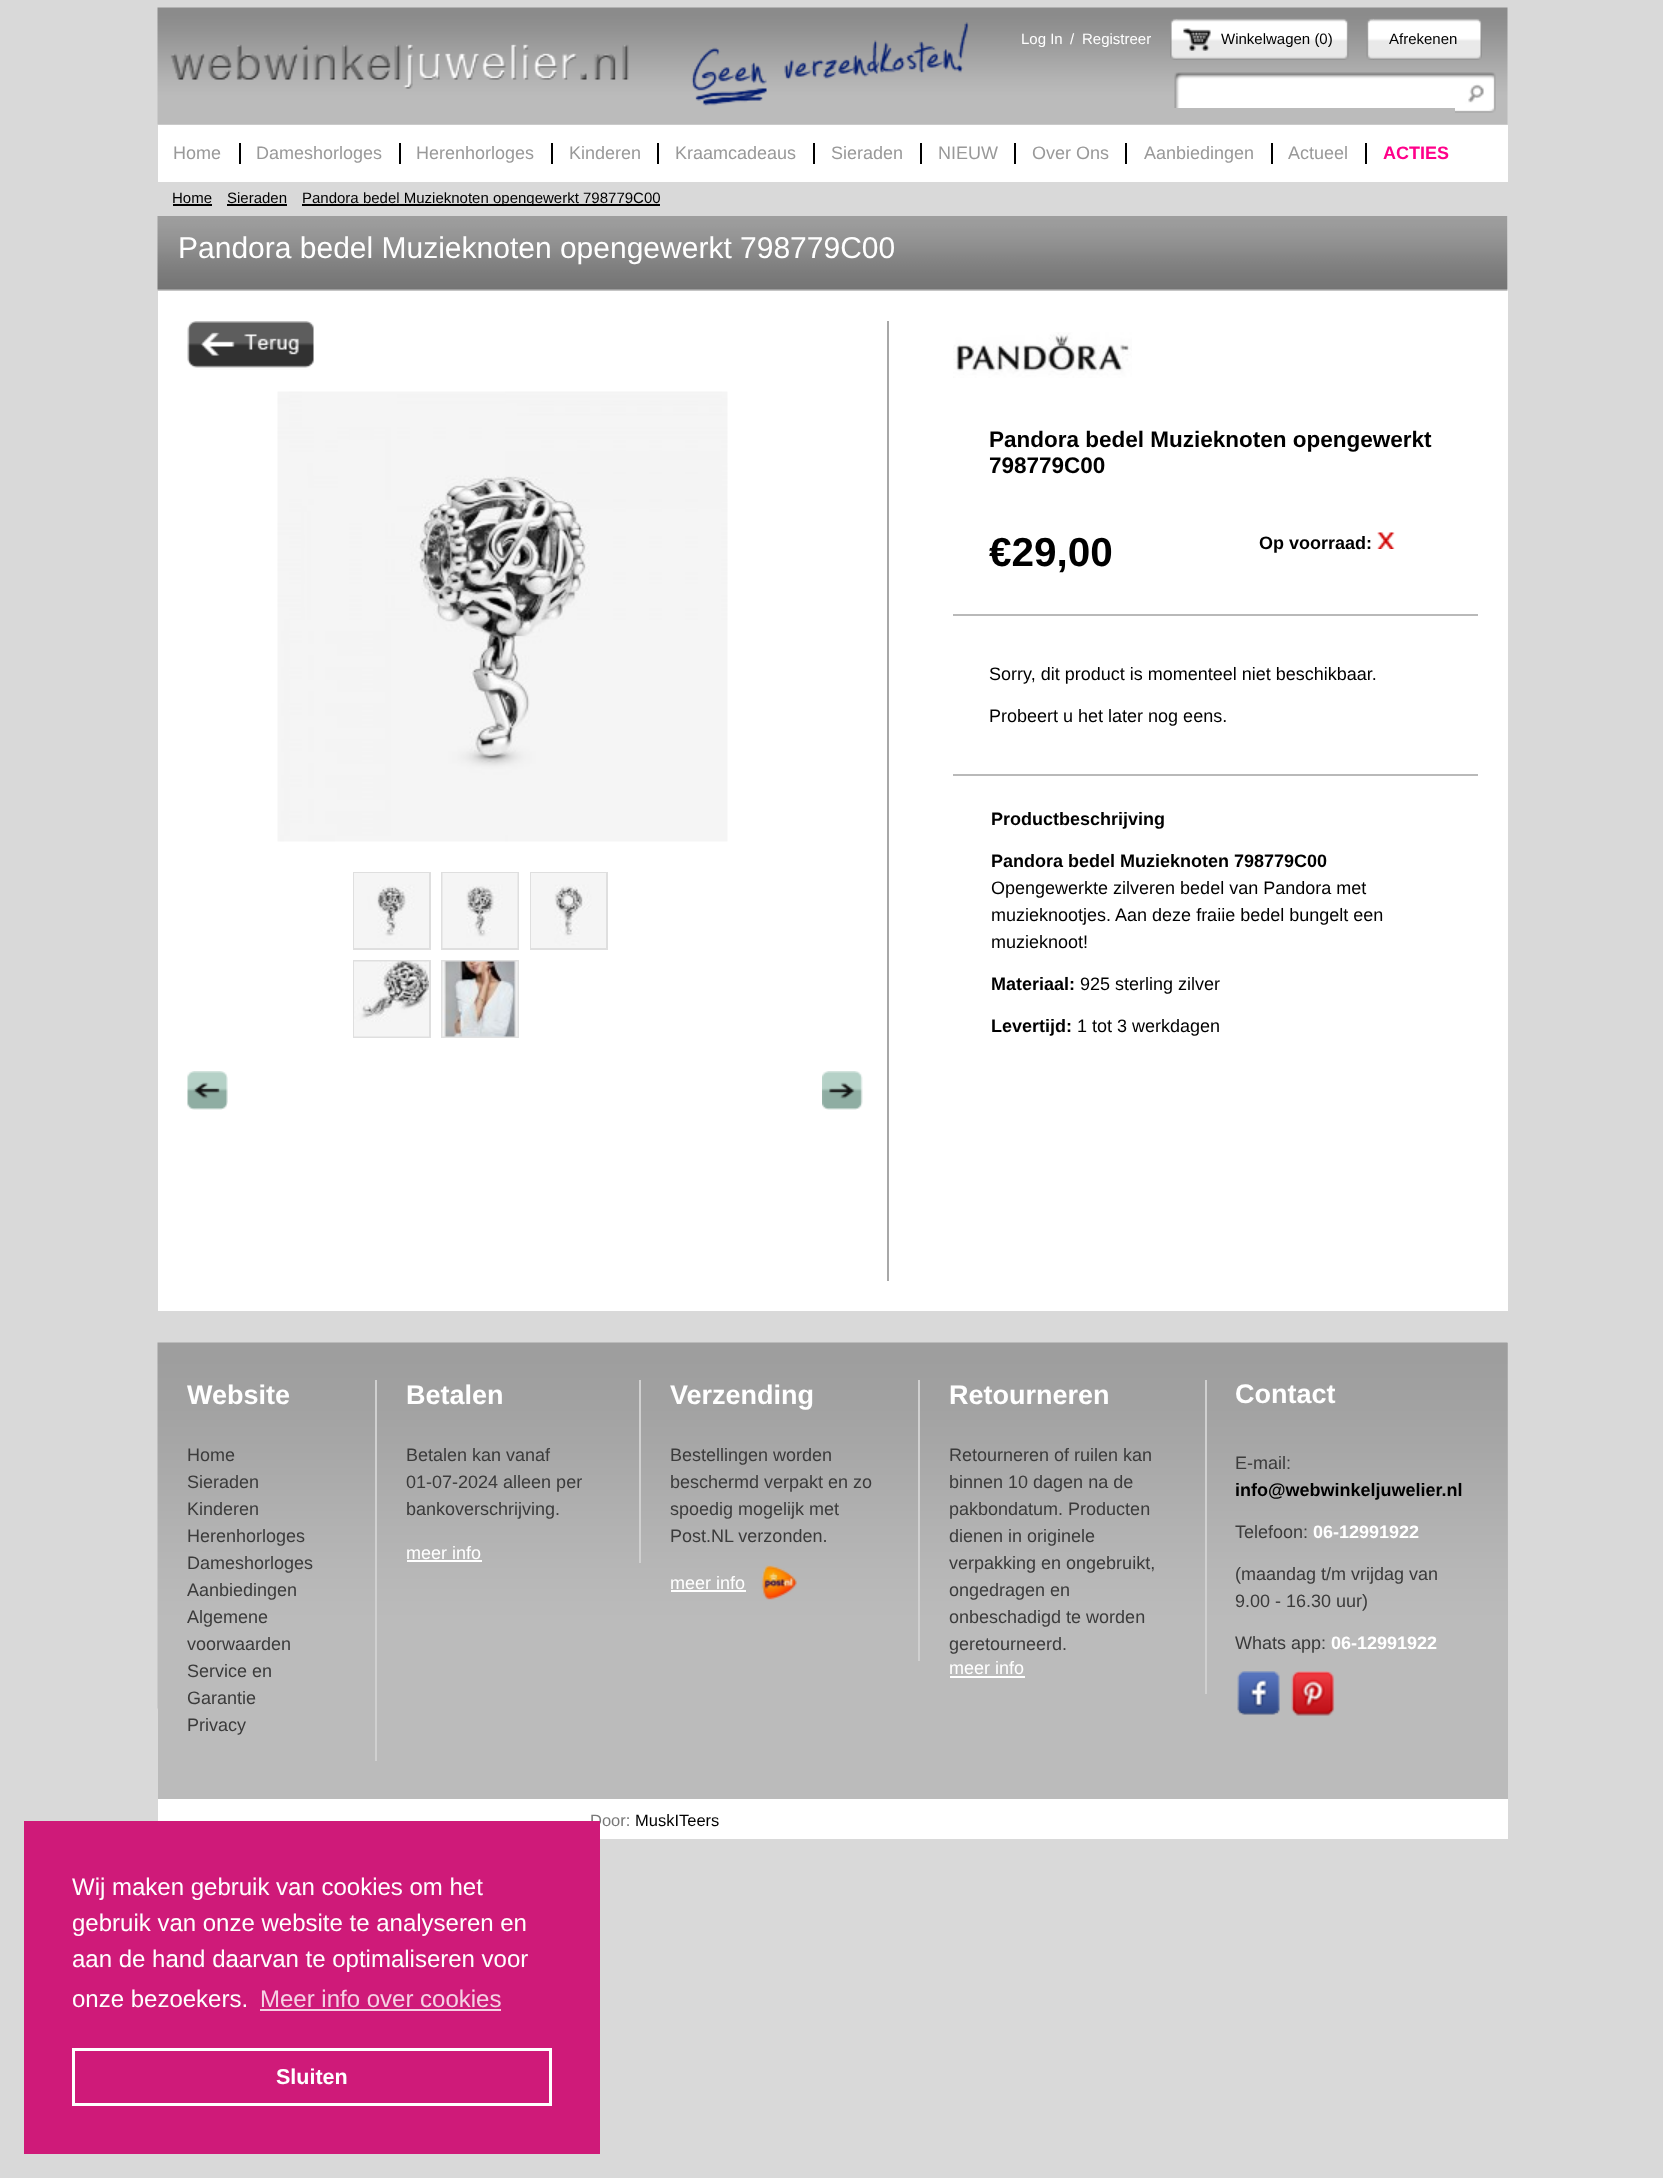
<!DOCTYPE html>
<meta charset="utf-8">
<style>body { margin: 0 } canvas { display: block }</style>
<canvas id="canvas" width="1663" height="2178"></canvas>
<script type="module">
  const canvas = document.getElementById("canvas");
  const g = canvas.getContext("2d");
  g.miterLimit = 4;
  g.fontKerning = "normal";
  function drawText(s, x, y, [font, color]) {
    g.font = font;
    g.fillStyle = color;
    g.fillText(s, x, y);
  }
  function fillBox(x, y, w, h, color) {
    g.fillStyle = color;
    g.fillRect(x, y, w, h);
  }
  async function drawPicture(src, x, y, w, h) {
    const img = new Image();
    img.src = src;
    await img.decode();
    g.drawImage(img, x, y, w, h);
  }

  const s1 = ["15px Liberation Sans", "#FFFFFF"];
  const s2 = ["15px Liberation Sans", "#000000"];
  const s3 = ["18px Liberation Sans", "#999999"];
  const s4 = ["bold 18px Liberation Sans", "#FF008A"];
  const s5 = ["30px Liberation Sans", "#FFFFFF"];
  const s6 = ["bold 22.5px Liberation Sans", "#000000"];
  const s7 = ["bold 40.5px Liberation Sans", "#000000"];
  const s8 = ["bold 18px Liberation Sans", "#000000"];
  const s9 = ["18px Liberation Sans", "#000000"];
  const s10 = ["bold 27px Liberation Sans", "#FFFFFF"];
  const s11 = ["18px Liberation Sans", "#3B3B3B"];
  const s12 = ["18px Liberation Sans", "#FFFFFF"];
  const s13 = ["bold 18px Liberation Sans", "#FFFFFF"];
  const s14 = ["16.5px Liberation Sans", "#787878"];
  const s15 = ["16.5px Liberation Sans", "#000000"];
  const s16 = ["24px Liberation Sans", "#FFFFFF"];
  const s17 = ["24px Liberation Sans", "#F5D1E4"];
  const s18 = ["bold 21.5px Liberation Sans", "#FFFFFF"];

  fillBox(0, 0, 1663, 2178, "#D9D9D9");
  await drawPicture("pic1.png", 157, 7, 1351, 118);
  await drawPicture("pic2.png", 170, 22, 799, 84);
  drawText("Log In", 1021, 44, s1);
  drawText("/", 1070, 44, s1);
  drawText("Registreer", 1082, 44, s1);
  await drawPicture("pic3.png", 1170, 18, 8, 42);
  await drawPicture("pic4.png", 1176, 18, 173, 42);
  await drawPicture("pic5.png", 1183, 28, 28, 23);
  drawText("Winkelwagen (0)", 1221, 44, s2);
  await drawPicture("pic6.png", 1366, 18, 8, 42);
  await drawPicture("pic7.png", 1373, 18, 109, 42);
  drawText("Afrekenen", 1389, 44, s2);
  await drawPicture("pic8.png", 1174, 72, 281, 36);
  await drawPicture("pic9.png", 1455, 72, 41, 41);
  fillBox(158, 125, 1350, 57, "#FFFFFF");
  fillBox(239, 143, 2, 21, "#000000");
  drawText("Home", 173, 159, s3);
  fillBox(399, 143, 2, 21, "#000000");
  drawText("Dameshorloges", 256, 159, s3);
  fillBox(551, 143, 2, 21, "#000000");
  drawText("Herenhorloges", 416, 159, s3);
  fillBox(657, 143, 2, 21, "#000000");
  drawText("Kinderen", 569, 159, s3);
  fillBox(813, 143, 2, 21, "#000000");
  drawText("Kraamcadeaus", 675, 159, s3);
  fillBox(920, 143, 2, 21, "#000000");
  drawText("Sieraden", 831, 159, s3);
  fillBox(1014, 143, 2, 21, "#000000");
  drawText("NIEUW", 938, 159, s3);
  fillBox(1125, 143, 2, 21, "#000000");
  drawText("Over Ons", 1032, 159, s3);
  fillBox(1271, 143, 2, 21, "#000000");
  drawText("Aanbiedingen", 1144, 159, s3);
  fillBox(1365, 143, 2, 21, "#000000");
  drawText("Actueel", 1288, 159, s3);
  drawText("ACTIES", 1383, 159, s4);
  drawText("Home", 172, 203, s2);
  fillBox(173, 204, 39, 2, "#000000");
  drawText("Sieraden", 227, 203, s2);
  fillBox(227, 204, 60, 2, "#000000");
  fillBox(302, 204, 358, 2, "#000000");
  drawText("Pandora bedel Muzieknoten opengewerkt 798779C00", 302, 203, s2);
  fillBox(158, 216, 1350, 1095, "#FFFFFF");
  await drawPicture("pic10.png", 157, 216, 1351, 75);
  drawText("Pandora bedel Muzieknoten opengewerkt 798779C00", 178, 258, s5);
  fillBox(887, 321, 2, 960, "#A8A8A8");
  await drawPicture("pic11.png", 187, 321, 127, 47);
  await drawPicture("pic12.png", 277, 391, 451, 451);
  g.strokeStyle = "#DFDFDF";
  g.lineWidth = 2;
  g.strokeRect(354, 873, 76, 76);
  await drawPicture("pic13.png", 354, 873, 75, 75);
  g.strokeRect(442, 873, 76, 76);
  await drawPicture("pic14.png", 442, 873, 76, 75);
  g.strokeRect(531, 873, 76, 76);
  await drawPicture("pic15.png", 531, 873, 75, 75);
  g.strokeRect(354, 961, 76, 76);
  await drawPicture("pic16.png", 354, 961, 75, 76);
  g.strokeRect(442, 961, 76, 76);
  await drawPicture("pic17.png", 442, 961, 76, 76);
  await drawPicture("pic18.png", 187, 1071, 41, 39);
  await drawPicture("pic19.png", 822, 1071, 41, 39);
  await drawPicture("pic20.png", 953, 332, 179, 46);
  drawText("Pandora bedel Muzieknoten opengewerkt", 989, 447, s6);
  drawText("798779C00", 989, 473, s6);
  fillBox(953, 614, 525, 2, "#B9B9B9");
  drawText("€29,00", 989, 566, s7);
  drawText("Op voorraad:", 1259, 549, s8);
  await drawPicture("pic21.png", 1377, 532, 18, 17);
  fillBox(953, 774, 525, 2, "#B9B9B9");
  drawText("Sorry, dit product is momenteel niet beschikbaar.", 989, 680, s9);
  drawText("Probeert u het later nog eens.", 989, 722, s9);
  drawText("Productbeschrijving", 991, 825, s8);
  drawText("Pandora bedel Muzieknoten 798779C00", 991, 867, s8);
  drawText("Opengewerkte zilveren bedel van Pandora met", 991, 894, s9);
  drawText("muzieknootjes. Aan deze fraiie bedel bungelt een", 991, 921, s9);
  drawText("muzieknoot!", 991, 948, s9);
  drawText("Materiaal:", 991, 990, s8);
  drawText("925 sterling zilver", 1080, 990, s9);
  drawText("Levertijd:", 991, 1032, s8);
  drawText("1 tot 3 werkdagen", 1077, 1032, s9);
  fillBox(158, 1343, 1350, 456, "#BBBBBB");
  await drawPicture("pic22.png", 157, 1342, 1351, 367);
  fillBox(375, 1380, 2, 381, "#D0D0D0");
  drawText("Website", 187, 1404, s10);
  drawText("Home", 187, 1461, s11);
  drawText("Sieraden", 187, 1488, s11);
  drawText("Kinderen", 187, 1515, s11);
  drawText("Herenhorloges", 187, 1542, s11);
  drawText("Dameshorloges", 187, 1569, s11);
  drawText("Aanbiedingen", 187, 1596, s11);
  drawText("Algemene", 187, 1623, s11);
  drawText("voorwaarden", 187, 1650, s11);
  drawText("Service en", 187, 1677, s11);
  drawText("Garantie", 187, 1704, s11);
  drawText("Privacy", 187, 1731, s11);
  fillBox(639, 1380, 2, 183, "#D0D0D0");
  drawText("Betalen", 406, 1404, s10);
  drawText("Betalen kan vanaf", 406, 1461, s11);
  drawText("01-07-2024 alleen per", 406, 1488, s11);
  drawText("bankoverschrijving.", 406, 1515, s11);
  drawText("meer info", 406, 1559, s12);
  fillBox(407, 1560, 75, 2, "#FFFFFF");
  fillBox(918, 1380, 2, 281, "#D0D0D0");
  drawText("Verzending", 670, 1404, s10);
  drawText("Bestellingen worden", 670, 1461, s11);
  drawText("beschermd verpakt en zo", 670, 1488, s11);
  drawText("spoedig mogelijk met", 670, 1515, s11);
  drawText("Post.NL verzonden.", 670, 1542, s11);
  drawText("meer info", 670, 1589, s12);
  fillBox(671, 1590, 75, 2, "#FFFFFF");
  await drawPicture("pic23.png", 761, 1565, 36, 35);
  fillBox(1205, 1380, 2, 314, "#D0D0D0");
  drawText("Retourneren", 949, 1404, s10);
  drawText("Retourneren of ruilen kan", 949, 1461, s11);
  drawText("binnen 10 dagen na de", 949, 1488, s11);
  drawText("pakbondatum. Producten", 949, 1515, s11);
  drawText("dienen in originele", 949, 1542, s11);
  drawText("verpakking en ongebruikt,", 949, 1569, s11);
  drawText("ongedragen en", 949, 1596, s11);
  drawText("onbeschadigd te worden", 949, 1623, s11);
  drawText("geretourneerd.", 949, 1650, s11);
  drawText("meer info", 949, 1674, s12);
  fillBox(950, 1676, 75, 2, "#FFFFFF");
  drawText("Contact", 1235, 1403, s10);
  drawText("E-mail:", 1235, 1469, s11);
  drawText("info@webwinkeljuwelier.nl", 1235, 1496, s8);
  drawText("Telefoon:", 1235, 1538, s11);
  drawText("06-12991922", 1313, 1538, s13);
  drawText("(maandag t/m vrijdag van", 1235, 1580, s11);
  drawText("9.00 - 16.30 uur)", 1235, 1607, s11);
  drawText("Whats app:", 1235, 1649, s11);
  drawText("06-12991922", 1331, 1649, s13);
  await drawPicture("pic24.png", 1237, 1671, 43, 44);
  await drawPicture("pic25.png", 1291, 1671, 44, 45);
  fillBox(158, 1799, 1350, 40, "#FFFFFF");
  drawText("Door:", 590, 1826, s14);
  drawText("MuskITeers", 635, 1826, s15);
  fillBox(24, 1821, 576, 333, "#CF1A79");
  drawText("Wij maken gebruik van cookies om het", 72, 1895, s16);
  drawText("gebruik van onze website te analyseren en", 72, 1931, s16);
  drawText("aan de hand daarvan te optimaliseren voor", 72, 1967, s16);
  drawText("onze bezoekers.", 72, 2007, s16);
  drawText("Meer info over cookies", 260, 2007, s17);
  fillBox(260, 2009, 241, 2, "#F5D1E4");
  g.strokeStyle = "#FFFFFF";
  g.lineWidth = 3;
  g.strokeRect(73.5, 2049.5, 477, 55);
  drawText("Sluiten", 276, 2084, s18);
</script>
